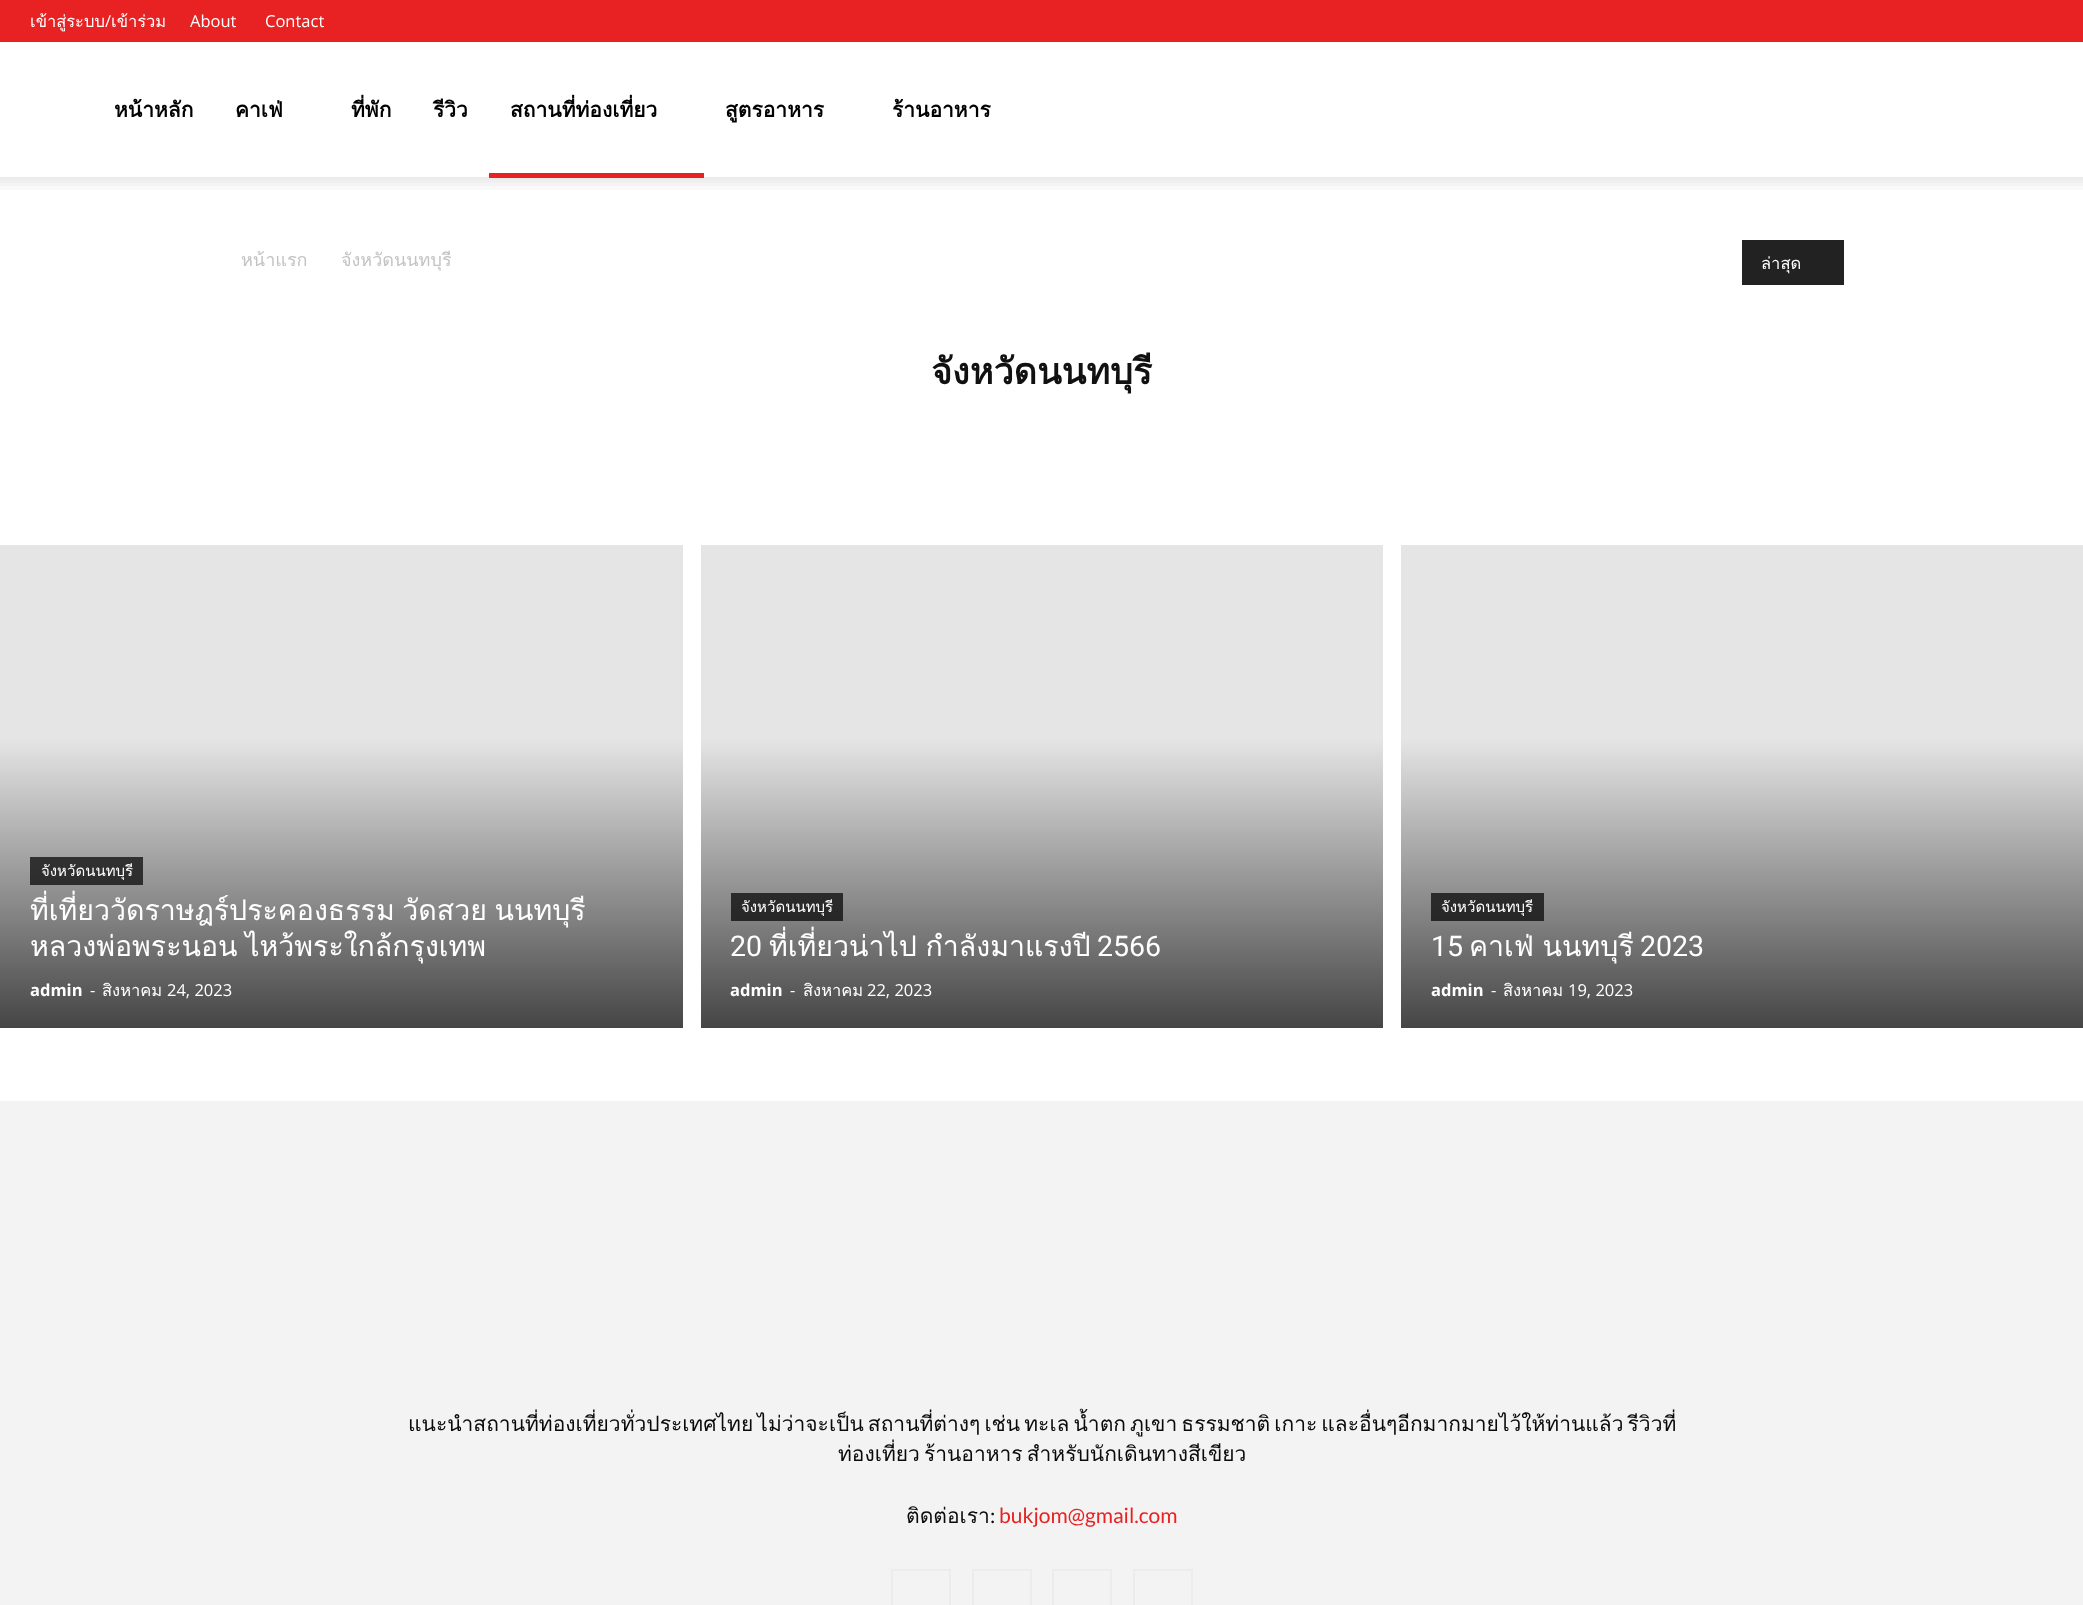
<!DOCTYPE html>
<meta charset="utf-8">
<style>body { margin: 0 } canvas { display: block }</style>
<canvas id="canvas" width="2083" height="1605"></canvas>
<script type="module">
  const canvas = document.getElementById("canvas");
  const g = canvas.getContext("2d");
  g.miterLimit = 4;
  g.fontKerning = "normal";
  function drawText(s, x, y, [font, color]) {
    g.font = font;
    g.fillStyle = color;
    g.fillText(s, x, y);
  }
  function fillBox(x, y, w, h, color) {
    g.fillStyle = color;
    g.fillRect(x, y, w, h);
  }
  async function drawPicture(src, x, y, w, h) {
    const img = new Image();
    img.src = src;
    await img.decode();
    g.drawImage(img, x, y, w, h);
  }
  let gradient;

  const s1 = ["16.5px Loma", "#FFFFFF"];
  const s2 = ["16.5px Open Sans", "#FFFFFF"];
  const s3 = ["bold 21px Loma", "#000000"];
  const s4 = ["18px Loma", "#C3C3C3"];
  const s5 = ["bold 36px Loma", "#111111"];
  const s6 = ["15px Loma", "#FFFFFF"];
  const s7 = ["28.5px Loma", "#FFFFFF"];
  const s8 = ["bold 16.5px Open Sans", "#FFFFFF"];
  const s9 = ["28.5px Roboto", "#FFFFFF"];
  const s10 = ["21px Loma", "#0A0A0A"];
  const s11 = ["21px Lato", "#0A0A0A"];
  const s12 = ["21px Lato", "#E82222"];

  fillBox(0, 0, 2083, 1605, "#FFFFFF");
  fillBox(0, 0, 2083, 42, "#E82222");
  drawText("เข้าสู่ระบบ", 30, 27, s1);
  drawText("/", 105, 27, s2);
  drawText("เข้าร่วม", 111, 27, s1);
  drawText("About", 190, 27, s2);
  drawText("Contact", 265, 27, s2);
  drawText("หน้าหลัก", 114, 117, s3);
  drawText("คาเฟ่", 235, 117, s3);
  drawText("ที่พัก", 351, 117, s3);
  drawText("รีวิว", 433, 117, s3);
  drawText("สถานที่ท่องเที่ยว", 510, 117, s3);
  await drawPicture("pic1.png", 0, 177, 2083, 13);
  fillBox(489, 173, 215, 5, "#E82222");
  drawText("สูตรอาหาร", 725, 117, s3);
  drawText("ร้านอาหาร", 892, 117, s3);
  drawText("หน้าแรก", 241, 266, s4);
  drawText("จังหวัดนนทบุรี", 341, 266, s4);
  fillBox(1742, 240, 102, 45, "#222222");
  drawText("ล่าสุด", 1761, 269, s1);
  drawText("จังหวัดนนทบุรี", 931, 384, s5);
  gradient = g.createLinearGradient(341, 545, 341, 1028);
  gradient.addColorStop(0.4, "#E5E5E5");
  gradient.addColorStop(1, "#454545");
  g.fillStyle = gradient;
  g.fillRect(0, 545, 683, 483);
  gradient = g.createLinearGradient(341, 545, 341, 1028);
  gradient.addColorStop(0.4, "#454545");
  gradient.addColorStop(1, "#151515");
  g.fillStyle = gradient;
  g.fillRect(30, 857, 113, 28);
  drawText("จังหวัดนนทบุรี", 41, 876, s6);
  g.wordSpacing = "-2px";
  drawText("ที่เที่ยววัดราษฎร์ประคองธรรม วัดสวย นนทบุรี", 30, 920, s7);
  drawText("หลวงพ่อพระนอน ไหว้พระใกล้กรุงเทพ", 30, 956, s7);
  g.wordSpacing = "0px";
  drawText("admin", 30, 996, s8);
  drawText("-", 90, 996, s2);
  drawText("สิงหาคม", 102, 996, s1);
  drawText("24, 2023", 167, 996, s2);
  gradient = g.createLinearGradient(1042, 545, 1042, 1028);
  gradient.addColorStop(0.4, "#E5E5E5");
  gradient.addColorStop(1, "#454545");
  g.fillStyle = gradient;
  g.fillRect(701, 545, 682, 483);
  gradient = g.createLinearGradient(1042, 545, 1042, 1028);
  gradient.addColorStop(0.4, "#454545");
  gradient.addColorStop(1, "#151515");
  g.fillStyle = gradient;
  g.fillRect(731, 893, 112, 28);
  drawText("จังหวัดนนทบุรี", 741, 912, s6);
  drawText("20", 730, 956, s9);
  g.wordSpacing = "-1px";
  drawText("ที่เที่ยวน่าไป กำลังมาแรงปี", 769, 956, s7);
  g.wordSpacing = "0px";
  drawText("2566", 1097, 956, s9);
  drawText("admin", 730, 996, s8);
  drawText("-", 790, 996, s2);
  drawText("สิงหาคม", 803, 996, s1);
  drawText("22, 2023", 867, 996, s2);
  gradient = g.createLinearGradient(1742, 545, 1742, 1028);
  gradient.addColorStop(0.4, "#E5E5E5");
  gradient.addColorStop(1, "#454545");
  g.fillStyle = gradient;
  g.fillRect(1401, 545, 682, 483);
  gradient = g.createLinearGradient(1742, 545, 1742, 1028);
  gradient.addColorStop(0.4, "#454545");
  gradient.addColorStop(1, "#151515");
  g.fillStyle = gradient;
  g.fillRect(1431, 893, 113, 28);
  drawText("จังหวัดนนทบุรี", 1441, 912, s6);
  drawText("15", 1431, 956, s9);
  g.wordSpacing = "-1px";
  drawText("คาเฟ่ นนทบุรี", 1469, 956, s7);
  g.wordSpacing = "0px";
  drawText("2023", 1640, 956, s9);
  drawText("admin", 1431, 996, s8);
  drawText("-", 1491, 996, s2);
  drawText("สิงหาคม", 1503, 996, s1);
  drawText("19, 2023", 1568, 996, s2);
  fillBox(0, 1101, 2083, 504, "#F3F3F3");
  g.wordSpacing = "-3px";
  drawText("แนะนำสถานที่ท่องเที่ยวทั่วประเทศไทย ไม่ว่าจะเป็น สถานที่ต่างๆ เช่น ทะเล น้ำตก ภูเขา ธรรมชาติ เกาะ และอื่นๆอีกมากมายไว้ให้ท่านแล้ว รีวิวที่", 408, 1431, s10);
  drawText("ท่องเที่ยว ร้านอาหาร สำหรับนักเดินทางสีเขียว", 838, 1461, s10);
  g.wordSpacing = "0px";
  drawText("ติดต่อเรา", 906, 1523, s10);
  drawText(":", 990, 1523, s11);
  drawText("bukjom@gmail.com", 999, 1523, s12);
  g.strokeStyle = "#ECECEC";
  g.lineWidth = 2;
  g.strokeRect(892, 1570, 58, 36);
  g.strokeRect(973, 1570, 58, 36);
  g.strokeRect(1053, 1570, 58, 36);
  g.strokeRect(1134, 1570, 58, 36);
</script>
